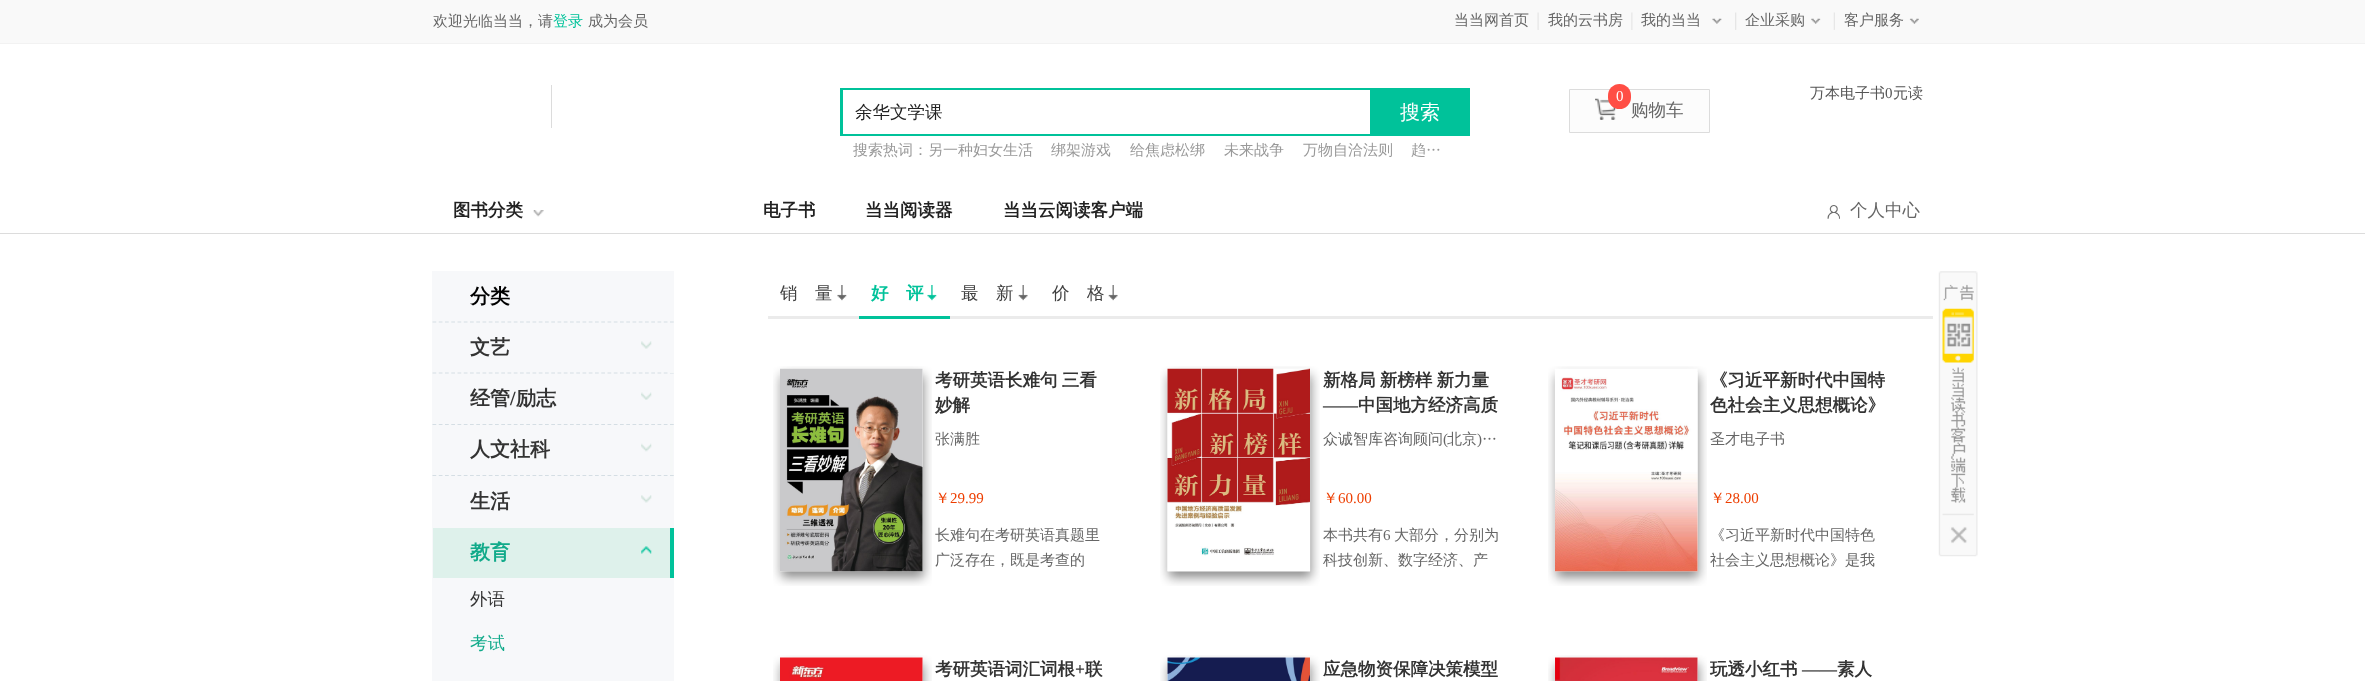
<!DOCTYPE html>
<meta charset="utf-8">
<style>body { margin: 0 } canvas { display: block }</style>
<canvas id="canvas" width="2365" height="681"></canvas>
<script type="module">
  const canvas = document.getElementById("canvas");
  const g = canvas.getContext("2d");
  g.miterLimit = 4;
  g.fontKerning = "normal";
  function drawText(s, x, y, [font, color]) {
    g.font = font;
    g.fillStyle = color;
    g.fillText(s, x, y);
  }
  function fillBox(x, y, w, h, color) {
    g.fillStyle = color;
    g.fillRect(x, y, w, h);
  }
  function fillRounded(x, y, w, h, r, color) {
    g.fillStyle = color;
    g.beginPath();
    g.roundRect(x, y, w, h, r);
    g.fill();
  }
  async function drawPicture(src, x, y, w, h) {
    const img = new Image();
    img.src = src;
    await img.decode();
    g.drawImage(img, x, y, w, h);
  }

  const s1 = ["500 15px WenQuanYi Zen Hei", "#666666"];
  const s2 = ["500 15px WenQuanYi Zen Hei", "#00C29A"];
  const s3 = ["500 17.5px WenQuanYi Zen Hei", "#222222"];
  const s4 = ["500 20px WenQuanYi Zen Hei", "#FFFFFF"];
  const s5 = ["500 15px WenQuanYi Zen Hei", "#999999"];
  const s6 = ["15px Liberation Serif", "#FFFFFF"];
  const s7 = ["500 17.5px WenQuanYi Zen Hei", "#666666"];
  const s8 = ["500 15px WenQuanYi Zen Hei", "#555555"];
  const s9 = ["15px Liberation Serif", "#555555"];
  const s10 = ["bold 17.5px WenQuanYi Zen Hei", "#222222"];
  const s11 = ["bold 20px WenQuanYi Zen Hei", "#000000"];
  const s12 = ["bold 20px WenQuanYi Zen Hei", "#333333"];
  const s13 = ["bold 20px Liberation Serif", "#333333"];
  const s14 = ["bold 20px WenQuanYi Zen Hei", "#11AA8A"];
  const s15 = ["500 17.5px WenQuanYi Zen Hei", "#333333"];
  const s16 = ["500 17.5px WenQuanYi Zen Hei", "#11AA8A"];
  const s17 = ["500 17.5px WenQuanYi Zen Hei", "#404040"];
  const s18 = ["bold 17.5px WenQuanYi Zen Hei", "#00C29A"];
  const s19 = ["bold 17.5px WenQuanYi Zen Hei", "#333333"];
  const s20 = ["500 15px WenQuanYi Zen Hei", "#ED3E01"];
  const s21 = ["15px Liberation Serif", "#ED3E01"];
  const s22 = ["bold 17.5px Liberation Serif", "#333333"];
  const s23 = ["15px Liberation Serif", "#666666"];

  fillBox(0, 0, 2365, 681, "#FFFFFF");
  fillBox(0, 0, 2365, 43, "#F9F9F9");
  fillBox(0, 43, 2365, 1, "#F2F2F2");
  drawText("欢迎光临当当，请", 433, 26, s1);
  drawText("登录", 553, 26, s2);
  drawText("成为会员", 588, 26, s1);
  drawText("当当网首页", 1454, 25, s1);
  await drawPicture("pic1.png", 1537, 12, 2, 18);
  drawText("我的云书房", 1548, 25, s1);
  await drawPicture("pic2.png", 1631, 12, 2, 18);
  await drawPicture("pic3.png", 1712, 18, 10, 6);
  drawText("我的当当", 1641, 25, s1);
  await drawPicture("pic4.png", 1735, 12, 2, 18);
  await drawPicture("pic5.png", 1811, 18, 10, 6);
  drawText("企业采购", 1745, 25, s1);
  await drawPicture("pic6.png", 1833, 12, 2, 18);
  await drawPicture("pic7.png", 1909, 18, 10, 6);
  drawText("客户服务", 1844, 25, s1);
  fillBox(551, 85, 1, 43, "#DCDCDC");
  g.strokeStyle = "#00C29A";
  g.lineWidth = 3;
  g.strokeRect(841.5, 89.5, 627, 45);
  fillBox(843, 90, 527, 44, "#FFFFFF");
  drawText("余华文学课", 855, 118, s3);
  fillBox(1370, 91, 97, 42, "#00C29A");
  drawText("搜索", 1400, 119, s4);
  drawText("搜索热词：另一种妇女生活", 853, 155, s5);
  drawText("绑架游戏", 1051, 155, s5);
  drawText("给焦虑松绑", 1130, 155, s5);
  drawText("未来战争", 1224, 155, s5);
  drawText("万物自洽法则", 1303, 155, s5);
  drawText("趋…", 1411, 155, s5);
  g.fillStyle = "#FCFCFC";
  g.beginPath();
  g.rect(1569.5, 89.5, 140, 43);
  g.fill();
  g.strokeStyle = "#DCDCDC";
  g.lineWidth = 1;
  g.stroke();
  await drawPicture("pic8.png", 1595, 98, 22, 22);
  fillRounded(1608, 84, 23, 25, 11.5, "#FF4E45");
  drawText("0", 1616, 101, s6);
  drawText("购物车", 1631, 116, s7);
  drawText("万本电子书", 1810, 98, s8);
  drawText("0", 1885, 98, s9);
  drawText("元读", 1893, 98, s8);
  fillBox(0, 233, 2365, 1, "#DCDCDC");
  drawText("图书分类", 453, 216, s10);
  await drawPicture("pic9.png", 533, 210, 11, 7);
  drawText("电子书", 763, 216, s10);
  drawText("当当阅读器", 865, 216, s10);
  drawText("当当云阅读客户端", 1003, 216, s10);
  await drawPicture("pic10.png", 1827, 205, 13, 14);
  drawText("个人中心", 1850, 216, s7);
  fillBox(432, 271, 242, 410, "#F7F8FA");
  drawText("分类", 470, 303, s11);
  g.beginPath();
  g.moveTo(432.5, 322);
  g.lineTo(674, 322);
  g.strokeStyle = "#D5DEE4";
  g.lineWidth = 1.2;
  g.setLineDash([3.75, 2.5]);
  g.stroke();
  g.beginPath();
  g.moveTo(432.5, 373);
  g.lineTo(674, 373);
  g.stroke();
  fillBox(670, 372, 4, 1, "#F6F8F8");
  drawText("文艺", 470, 354, s12);
  await drawPicture("pic11.png", 641, 341, 11, 8);
  g.beginPath();
  g.moveTo(432.5, 424.5);
  g.lineTo(674, 424.5);
  g.stroke();
  fillBox(670, 423, 3, 1, "#F6F8F8");
  drawText("经管", 470, 405, s12);
  drawText("/", 510, 405, s13);
  drawText("励志", 516, 405, s12);
  await drawPicture("pic12.png", 641, 392, 11, 8);
  g.beginPath();
  g.moveTo(432.5, 475.5);
  g.lineTo(674, 475.5);
  g.stroke();
  fillBox(670, 425, 3, 50, "#F6F8F8");
  drawText("人文社科", 470, 456, s12);
  await drawPicture("pic13.png", 641, 443, 11, 9);
  fillBox(670, 476, 3, 1, "#F6F8F8");
  drawText("生活", 470, 508, s12);
  await drawPicture("pic14.png", 641, 495, 11, 8);
  fillBox(433, 528, 237, 50, "#DEF1EB");
  fillBox(670, 528, 4, 50, "#00C29A");
  drawText("教育", 470, 559, s14);
  await drawPicture("pic15.png", 641, 546, 11, 8);
  drawText("外语", 470, 605, s15);
  drawText("考试", 470, 649, s16);
  fillBox(768, 316, 1165, 3, "#EBEBEB");
  drawText("销　量", 780, 299, s17);
  await drawPicture("pic16.png", 837, 285, 10, 16);
  drawText("好　评", 871, 299, s18);
  await drawPicture("pic17.png", 927, 285, 10, 16);
  drawText("最　新", 961, 299, s17);
  await drawPicture("pic18.png", 1018, 285, 10, 16);
  drawText("价　格", 1052, 299, s17);
  await drawPicture("pic18.png", 1108, 285, 10, 16);
  fillBox(859, 316, 91, 3, "#00C29A");
  await drawPicture("pic19.png", 773, 366, 159, 220);
  await drawPicture("pic20.png", 780, 368, 143, 204);
  g.wordSpacing = "-1px";
  drawText("考研英语长难句 三看", 935, 386, s19);
  g.wordSpacing = "0px";
  drawText("妙解", 935, 411, s19);
  drawText("张满胜", 935, 444, s1);
  drawText("￥", 935, 503, s20);
  drawText("29.99", 950, 503, s21);
  drawText("长难句在考研英语真题里", 935, 540, s1);
  drawText("广泛存在，既是考查的", 935, 565, s1);
  await drawPicture("pic21.png", 1160, 366, 160, 220);
  await drawPicture("pic22.png", 1167, 368, 143, 204);
  g.wordSpacing = "-1px";
  drawText("新格局 新榜样 新力量", 1323, 386, s19);
  g.wordSpacing = "0px";
  drawText("——", 1323, 411, s22);
  drawText("中国地方经济高质", 1358, 411, s19);
  drawText("众诚智库咨询顾问", 1323, 444, s1);
  drawText("(", 1443, 444, s23);
  drawText("北京", 1447, 444, s1);
  drawText(")", 1477, 444, s23);
  drawText("…", 1482, 444, s1);
  drawText("￥", 1323, 503, s20);
  drawText("60.00", 1338, 503, s21);
  drawText("本书共有", 1323, 540, s1);
  drawText("6", 1383, 540, s23);
  drawText("大部分，分别为", 1394, 540, s1);
  drawText("科技创新、数字经济、产", 1323, 565, s1);
  await drawPicture("pic19.png", 1548, 366, 159, 220);
  await drawPicture("pic23.png", 1555, 372, 143, 200);
  drawText("《习近平新时代中国特", 1710, 386, s19);
  drawText("色社会主义思想概论》", 1710, 411, s19);
  drawText("圣才电子书", 1710, 444, s1);
  drawText("￥", 1710, 503, s20);
  drawText("28.00", 1725, 503, s21);
  drawText("《习近平新时代中国特色", 1710, 540, s1);
  drawText("社会主义思想概论》是我", 1710, 565, s1);
  await drawPicture("pic24.png", 773, 655, 159, 26);
  await drawPicture("pic25.png", 780, 657, 143, 24);
  drawText("考研英语词汇词根", 935, 675, s19);
  drawText("+", 1075, 675, s22);
  drawText("联", 1085, 675, s19);
  await drawPicture("pic26.png", 1160, 655, 160, 26);
  await drawPicture("pic27.png", 1167, 657, 143, 24);
  drawText("应急物资保障决策模型", 1323, 675, s19);
  await drawPicture("pic24.png", 1548, 655, 159, 26);
  await drawPicture("pic28.png", 1555, 657, 143, 24);
  drawText("玩透小红书", 1710, 675, s19);
  drawText("——", 1802, 675, s22);
  drawText("素人", 1837, 675, s19);
  await drawPicture("pic29.png", 1938, 271, 40, 286);
</script>
